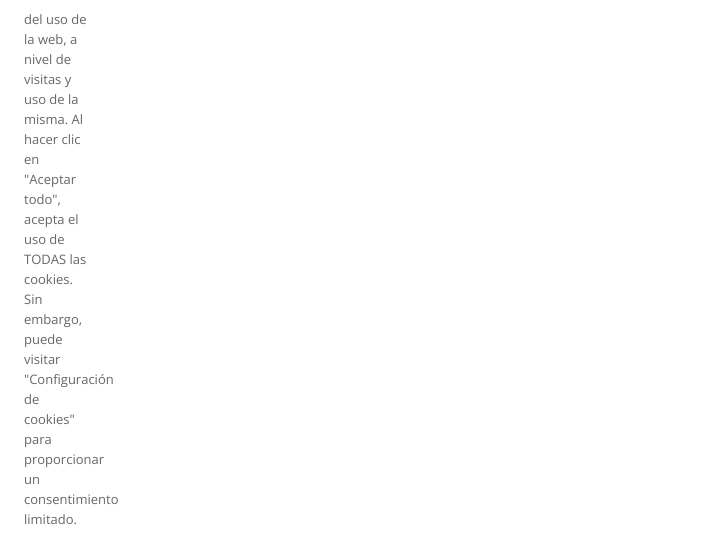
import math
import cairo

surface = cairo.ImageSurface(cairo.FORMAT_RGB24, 717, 549)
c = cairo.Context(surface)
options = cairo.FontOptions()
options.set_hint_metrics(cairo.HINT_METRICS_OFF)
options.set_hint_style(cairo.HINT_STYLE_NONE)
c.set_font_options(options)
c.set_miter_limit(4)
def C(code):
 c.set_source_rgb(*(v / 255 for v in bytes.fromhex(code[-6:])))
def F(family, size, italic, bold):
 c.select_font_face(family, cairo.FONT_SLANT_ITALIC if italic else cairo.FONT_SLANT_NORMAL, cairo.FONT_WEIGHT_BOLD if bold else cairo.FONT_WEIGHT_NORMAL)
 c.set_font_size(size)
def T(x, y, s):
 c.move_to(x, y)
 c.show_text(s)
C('ffffff')
c.paint()
F('Open Sans',13,0,0)
C('666666')
T(24,24,'del uso de')
T(24,44,'la web, a')
T(24,64,'nivel de')
T(24,84,'visitas y')
T(24,104,'uso de la')
T(24,124,'misma. Al')
T(24,144,'hacer clic')
T(24,164,'en')
T(24,184,'"Aceptar')
T(24,204,'todo",')
T(24,224,'acepta el')
T(24,244,'uso de')
T(24,264,'TODAS las')
T(24,284,'cookies.')
T(24,304,'Sin')
T(24,324,'embargo,')
T(24,344,'puede')
T(24,364,'visitar')
T(24,384,'"Configuración')
T(24,404,'de')
T(24,424,'cookies"')
T(24,444,'para')
T(24,464,'proporcionar')
T(24,484,'un')
T(24,504,'consentimiento')
T(24,524,'limitado.')
surface.write_to_png('o.png')
